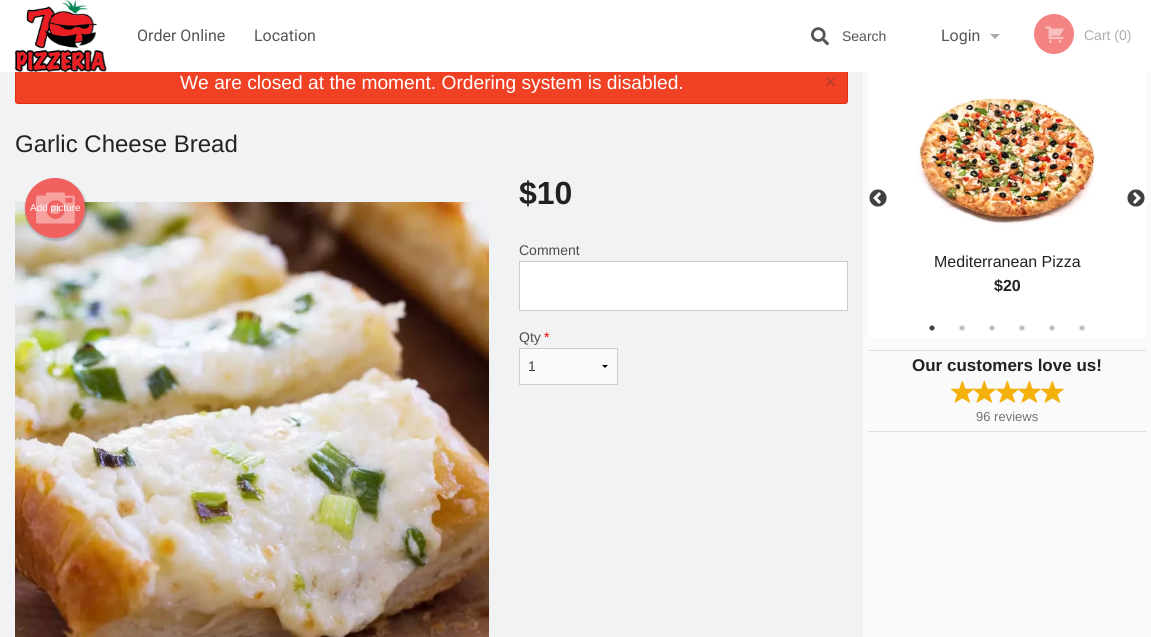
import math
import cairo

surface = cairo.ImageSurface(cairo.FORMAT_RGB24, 1151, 637)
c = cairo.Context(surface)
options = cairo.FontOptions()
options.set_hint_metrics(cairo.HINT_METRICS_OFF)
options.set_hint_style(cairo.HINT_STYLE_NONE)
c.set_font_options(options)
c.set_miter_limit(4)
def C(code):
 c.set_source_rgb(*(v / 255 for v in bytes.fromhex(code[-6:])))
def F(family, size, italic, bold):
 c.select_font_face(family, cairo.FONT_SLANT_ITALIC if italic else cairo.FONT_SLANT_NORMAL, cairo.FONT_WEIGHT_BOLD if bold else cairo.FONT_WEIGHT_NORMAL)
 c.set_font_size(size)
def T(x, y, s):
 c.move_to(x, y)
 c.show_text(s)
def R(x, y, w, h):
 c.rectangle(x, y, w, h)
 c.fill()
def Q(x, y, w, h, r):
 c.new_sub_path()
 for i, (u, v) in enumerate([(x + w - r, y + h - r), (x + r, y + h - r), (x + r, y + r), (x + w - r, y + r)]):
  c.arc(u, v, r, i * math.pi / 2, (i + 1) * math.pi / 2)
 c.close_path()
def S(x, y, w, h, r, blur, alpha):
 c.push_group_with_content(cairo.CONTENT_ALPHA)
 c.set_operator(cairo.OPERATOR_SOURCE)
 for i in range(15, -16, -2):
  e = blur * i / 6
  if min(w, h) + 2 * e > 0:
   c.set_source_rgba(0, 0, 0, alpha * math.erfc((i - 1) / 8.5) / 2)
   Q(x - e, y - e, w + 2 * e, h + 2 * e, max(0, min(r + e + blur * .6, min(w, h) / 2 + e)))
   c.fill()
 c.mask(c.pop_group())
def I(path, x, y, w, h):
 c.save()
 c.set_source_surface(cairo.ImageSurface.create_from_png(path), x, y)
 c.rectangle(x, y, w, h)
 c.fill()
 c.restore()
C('f1f2f3')
c.paint()
C('f04124')
Q(15.5,63.5,832,40,2.5)
c.fill_preserve()
C('de2d0f')
c.set_line_width(1)
c.stroke()
C('ffffff')
R(0,0,1151,72)
I('1.png',14,0,93,72)
F('Roboto',16,0,0)
C('555555')
T(137,41,'Order Online')
T(254,41,'Location')
I('2.png',811,27,18,19)
F('Liberation Sans',14,0,0)
T(842,41,'Search')
F('Roboto',16,0,0)
T(941,41,'Login')
C('aaaaaa')
c.new_path()
c.move_to(990,34)
c.line_to(1000,34)
c.line_to(995,39)
c.close_path()
c.fill()
C('f38482')
c.arc(1054,34,20,0,2 * math.pi)
c.fill()
I('3.png',1045,26,19,17)
F('Liberation Sans',14,0,0)
C('acacac')
T(1084,40,'Cart (0)')
F('Liberation Sans',19.2,0,0)
C('ffffff')
T(180,89,'We are closed at the moment. Ordering system is disabled.')
F('Liberation Sans',22,0,0)
C('b73d29')
T(824,89,'×')
F('Liberation Sans',24,0,0)
C('222222')
T(15,152,'Garlic Cheese Bread')
I('4.png',15,202,474,435)
C('000000')
S(25,179,62,62,31,1,.2)
C('f0615f')
c.arc(55,208,30,0,2 * math.pi)
c.fill()
I('5.png',36,192,39,32)
F('Liberation Sans',10,0,0)
C('ffffff')
T(30,211,'Add picture')
F('Liberation Sans',32,0,1)
C('222222')
T(519,204,'$10')
F('Liberation Sans',14,0,0)
C('4d4d4d')
T(519,255,'Comment')
C('ffffff')
c.rectangle(519.5,261.5,328,49)
c.fill_preserve()
C('cccccc')
c.stroke()
C('4d4d4d')
T(519,342,'Qty')
C('ff0000')
T(544,342,'*')
C('fafafa')
R(520,349,97,35)
C('000000')
c.new_path()
c.move_to(608,365)
c.line_to(605,368)
c.line_to(602,365)
c.close_path()
c.fill()
c.rectangle(519.5,348.5,98,36)
C('cccccc')
c.stroke()
C('3f3f3f')
T(528,371,'1')
C('fafafa')
R(863,72,288,565)
C('ffffff')
R(868,72,278,266)
I('6.png',869,189,18,18)
I('7.png',1127,189,18,18)
I('8.png',917,97,178,128)
F('Liberation Sans',16,0,0)
C('222222')
T(934,267,'Mediterranean Pizza')
F('Liberation Sans',16,0,1)
T(994,291,'$20')
I('9.png',929,325,6,6)
I('10.png',959,325,6,6)
I('10.png',989,325,6,6)
I('10.png',1019,325,6,6)
I('10.png',1049,325,6,6)
I('10.png',1079,325,6,6)
C('dddddd')
R(868,350,278,1)
F('Liberation Sans',17,0,1)
C('222222')
T(912,371,'Our customers love us!')
I('11.png',951,380,23,23)
I('12.png',973,380,23,23)
I('11.png',996,380,23,23)
I('12.png',1018,380,23,23)
I('11.png',1041,380,23,23)
F('Liberation Sans',13,0,0)
C('737373')
T(976,421,'96 reviews')
C('dddddd')
R(868,431,278,1)
surface.write_to_png('o.png')
